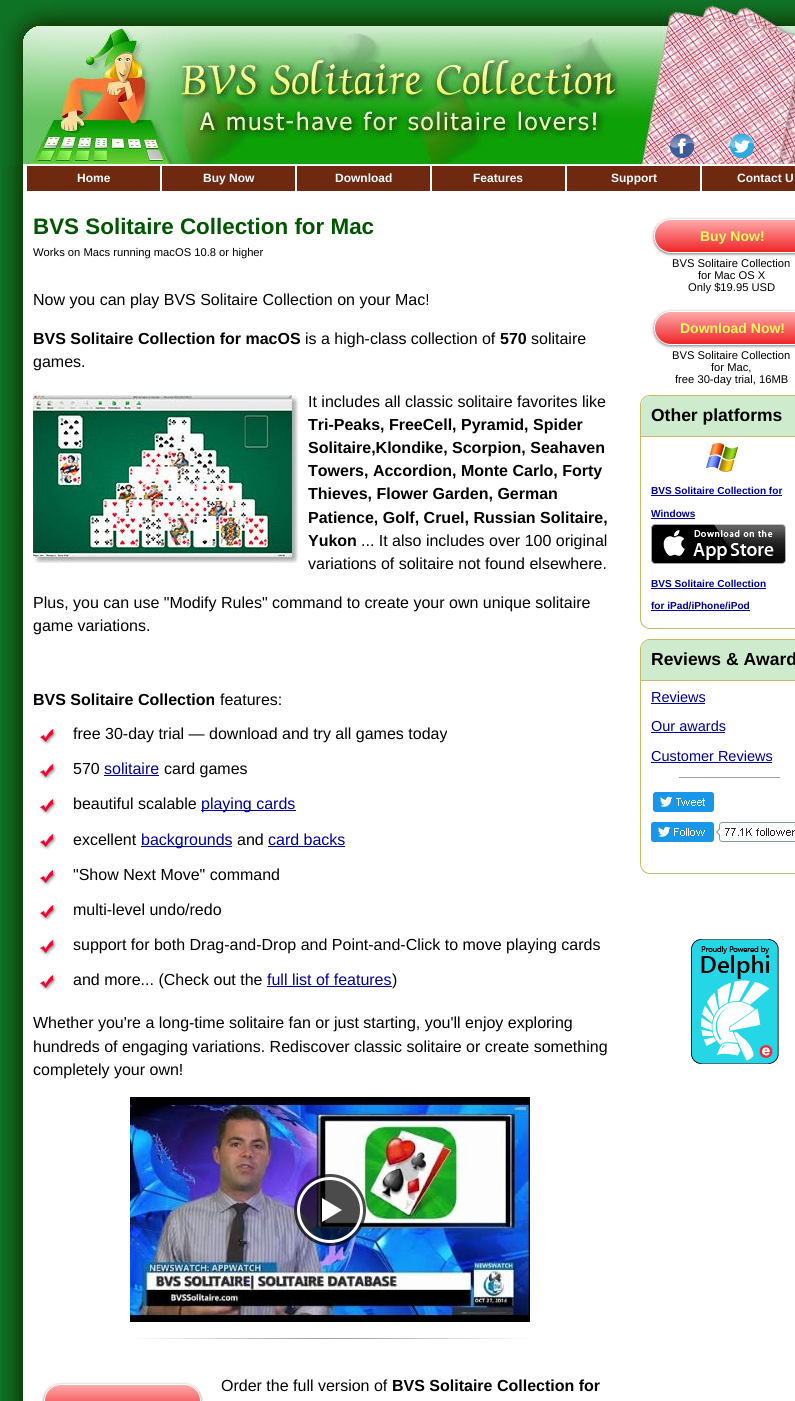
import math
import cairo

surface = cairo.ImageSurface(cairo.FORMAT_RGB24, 795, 1401)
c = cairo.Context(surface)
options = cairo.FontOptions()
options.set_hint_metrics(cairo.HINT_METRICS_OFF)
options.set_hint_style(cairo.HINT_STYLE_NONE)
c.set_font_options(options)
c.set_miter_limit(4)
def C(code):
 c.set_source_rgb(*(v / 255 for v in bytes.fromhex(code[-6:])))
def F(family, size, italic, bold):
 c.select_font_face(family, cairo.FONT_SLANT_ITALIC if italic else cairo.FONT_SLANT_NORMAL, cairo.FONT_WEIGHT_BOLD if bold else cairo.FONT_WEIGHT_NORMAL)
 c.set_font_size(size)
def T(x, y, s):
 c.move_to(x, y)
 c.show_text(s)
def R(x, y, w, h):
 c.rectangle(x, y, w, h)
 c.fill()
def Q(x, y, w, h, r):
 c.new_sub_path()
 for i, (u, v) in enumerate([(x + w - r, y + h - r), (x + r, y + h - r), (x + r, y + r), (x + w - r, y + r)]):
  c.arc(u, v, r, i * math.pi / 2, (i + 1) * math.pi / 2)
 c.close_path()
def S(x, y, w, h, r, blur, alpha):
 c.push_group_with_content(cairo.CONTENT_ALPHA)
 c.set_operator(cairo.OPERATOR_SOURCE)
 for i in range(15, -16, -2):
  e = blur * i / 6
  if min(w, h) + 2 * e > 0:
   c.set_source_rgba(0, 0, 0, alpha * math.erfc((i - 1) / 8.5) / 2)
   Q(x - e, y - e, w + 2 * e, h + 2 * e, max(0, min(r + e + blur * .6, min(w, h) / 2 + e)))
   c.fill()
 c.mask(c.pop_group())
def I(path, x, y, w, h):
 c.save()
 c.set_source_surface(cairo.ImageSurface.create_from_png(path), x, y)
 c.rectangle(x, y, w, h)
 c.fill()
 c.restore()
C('0f7326')
c.paint()
I('1.png',2,209,793,1192)
I('2.png',2,0,793,165)
I('3.png',670,134,24,24)
I('4.png',730,134,24,24)
I('5.png',2,165,793,44)
C('6f2911')
R(27,166,133,25)
F('Liberation Sans',12,0,1)
C('fefefe')
T(77,182,'Home')
C('6f2911')
R(162,166,133,25)
C('fefefe')
T(203,182,'Buy Now')
C('6f2911')
R(297,166,133,25)
C('fefefe')
T(335,182,'Download')
C('6f2911')
R(432,166,133,25)
C('fefefe')
T(473,182,'Features')
C('6f2911')
R(567,166,133,25)
C('fefefe')
T(611,182,'Support')
C('6f2911')
R(702,166,93,25)
C('fefefe')
T(737,182,'Contact U')
F('Liberation Sans',22.4,0,1)
C('005500')
T(33,234,'BVS Solitaire Collection for Mac')
F('Liberation Sans',11.2,0,0)
C('000000')
T(33,256,'Works on Macs running macOS 10.8 or higher')
F('Liberation Sans',16,0,0)
T(33,305,'Now you can play BVS Solitaire Collection on your Mac!')
F('Liberation Sans',16,0,1)
T(33,344,'BVS Solitaire Collection for macOS')
F('Liberation Sans',16,0,0)
T(305,344,'is a high-class collection of')
F('Liberation Sans',16,0,1)
T(500,344,'570')
F('Liberation Sans',16,0,0)
T(531,344,'solitaire')
T(33,367,'games.')
I('6.png',33,395,265,168)
T(308,407,'It includes all classic solitaire favorites like')
F('Liberation Sans',16,0,1)
T(308,430,'Tri-Peaks, FreeCell, Pyramid, Spider')
T(308,453,'Solitaire,Klondike, Scorpion, Seahaven')
T(308,476,'Towers, Accordion, Monte Carlo, Forty')
T(308,499,'Thieves, Flower Garden, German')
T(308,523,'Patience, Golf, Cruel, Russian Solitaire,')
T(308,546,'Yukon')
F('Liberation Sans',16,0,0)
T(361,546,'... It also includes over 100 original')
T(308,569,'variations of solitaire not found elsewhere.')
T(33,608,'Plus, you can use "Modify Rules" command to create your own unique solitaire')
T(33,631,'game variations.')
F('Liberation Sans',16,0,1)
T(33,705,'BVS Solitaire Collection')
F('Liberation Sans',16,0,0)
T(220,705,'features:')
I('7.png',39,728,18,17)
T(73,739,'free 30-day trial — download and try all games today')
I('7.png',39,763,18,17)
T(73,774,'570')
C('000099')
T(104,774,'solitaire')
R(104,775,55,1)
C('000000')
T(164,774,'card games')
I('7.png',39,798,18,17)
T(73,809,'beautiful scalable')
C('000099')
R(201,810,95,1)
T(201,809,'playing cards')
I('7.png',39,833,18,17)
C('000000')
T(73,845,'excellent')
C('000099')
R(141,846,91,1)
T(141,845,'backgrounds')
C('000000')
T(237,845,'and')
C('000099')
T(268,845,'card backs')
R(268,846,77,1)
I('7.png',39,869,18,17)
C('000000')
T(73,880,'"Show Next Move" command')
I('7.png',39,904,18,17)
T(73,915,'multi-level undo/redo')
I('7.png',39,939,18,17)
T(73,950,'support for both Drag-and-Drop and Point-and-Click to move playing cards')
I('7.png',39,974,18,17)
T(73,985,'and more... (Check out the')
C('000099')
T(267,985,'full list of features')
R(267,986,125,1)
C('000000')
T(392,985,')')
T(33,1028,'Whether you\'re a long-time solitaire fan or just starting, you\'ll enjoy exploring')
T(33,1052,'hundreds of engaging variations. Rediscover classic solitaire or create something')
T(33,1075,'completely your own!')
I('8.png',130,1097,400,225)
I('9.png',294,1174,72,72)
I('10.png',132,1338,397,1)
C('777777')
S(44,1385,157,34,17,1.5,1)
c.save()
Q(44,1384,157,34,17)
c.clip()
gradient = cairo.LinearGradient(123,1385,123,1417)
gradient.add_color_stop_rgba(0,1,0.667,0.667,1)
gradient.add_color_stop_rgba(1,0.937,0.145,0.161,1)
c.set_source(gradient)
R(44,1385,157,16)
c.restore()
Q(44.5,1384.5,156,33,16.5)
C('ffffff')
c.set_line_width(1)
c.stroke()
C('000000')
T(221,1391,'Order the full version of')
F('Liberation Sans',16,0,1)
T(392,1391,'BVS Solitaire Collection for')
C('777777')
S(654,220,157,34,17,1.5,1)
c.save()
Q(654,219,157,34,17)
c.clip()
gradient = cairo.LinearGradient(733,220,733,252)
gradient.add_color_stop_rgba(0,1,0.667,0.667,1)
gradient.add_color_stop_rgba(1,0.937,0.145,0.161,1)
c.set_source(gradient)
R(654,220,141,32)
c.restore()
Q(654.5,219.5,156,33,16.5)
C('ffffff')
c.stroke()
F('Liberation Sans',14,0,1)
C('fffa5e')
T(700,241,'Buy Now!')
F('Liberation Sans',11.2,0,0)
C('000000')
T(672,267,'BVS Solitaire Collection')
T(698,279,'for Mac OS X')
T(688,291,'Only $19.95 USD')
C('777777')
S(654,312,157,34,17,1.5,1)
c.save()
Q(654,311,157,34,17)
c.clip()
gradient = cairo.LinearGradient(733,312,733,344)
gradient.add_color_stop_rgba(0,1,0.667,0.667,1)
gradient.add_color_stop_rgba(1,0.937,0.145,0.161,1)
c.set_source(gradient)
R(654,312,141,32)
c.restore()
Q(654.5,311.5,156,33,16.5)
C('ffffff')
c.stroke()
F('Liberation Sans',14,0,1)
C('fffa5e')
T(680,333,'Download Now!')
F('Liberation Sans',11.2,0,0)
C('000000')
T(672,359,'BVS Solitaire Collection')
T(711,371,'for Mac,')
T(675,383,'free 30-day trial, 16MB')
Q(640.5,395.5,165,233,9.5)
C('c9ba65')
c.stroke()
C('ceebce')
c.new_path()
c.move_to(650,396)
c.line_to(795,396)
c.curve_to(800,396,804,400,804,405)
c.line_to(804,437)
c.line_to(641,437)
c.line_to(641,405)
c.curve_to(641,400,645,396,650,396)
c.close_path()
c.fill()
C('c9ba65')
R(641,436,154,1)
F('Liberation Sans',17.5,0,1)
C('000000')
T(651,421,'Other platforms')
I('11.png',706,443,32,29)
F('Liberation Sans',10.1,0,1)
C('000099')
T(651,494,'BVS Solitaire Collection for')
R(651,495,131,1)
T(651,517,'Windows')
R(651,518,44,1)
I('12.png',651,524,135,40)
T(651,587,'BVS Solitaire Collection')
R(651,588,115,1)
T(651,609,'for iPad/iPhone/iPod')
R(651,610,99,1)
Q(640.5,639.5,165,234,9.5)
C('c9ba65')
c.stroke()
C('ceebce')
c.new_path()
c.move_to(650,640)
c.line_to(795,640)
c.curve_to(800,640,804,644,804,649)
c.line_to(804,681)
c.line_to(641,681)
c.line_to(641,649)
c.curve_to(641,644,645,640,650,640)
c.close_path()
c.fill()
C('c9ba65')
R(641,680,154,1)
F('Liberation Sans',17.5,0,1)
C('000000')
T(651,665,'Reviews & Award')
F('Liberation Sans',14.5,0,0)
C('000099')
T(651,702,'Reviews')
R(651,703,54,1)
T(651,731,'Our awards')
R(651,732,74,1)
T(651,761,'Customer Reviews')
R(651,762,121,1)
C('9f9f9f')
R(679,777,102,1)
C('eeeeee')
R(780,777,1,1)
I('13.png',653,792,61,20)
I('14.png',651,822,144,20)
I('15.png',691,939,88,125)
surface.write_to_png('o.png')
